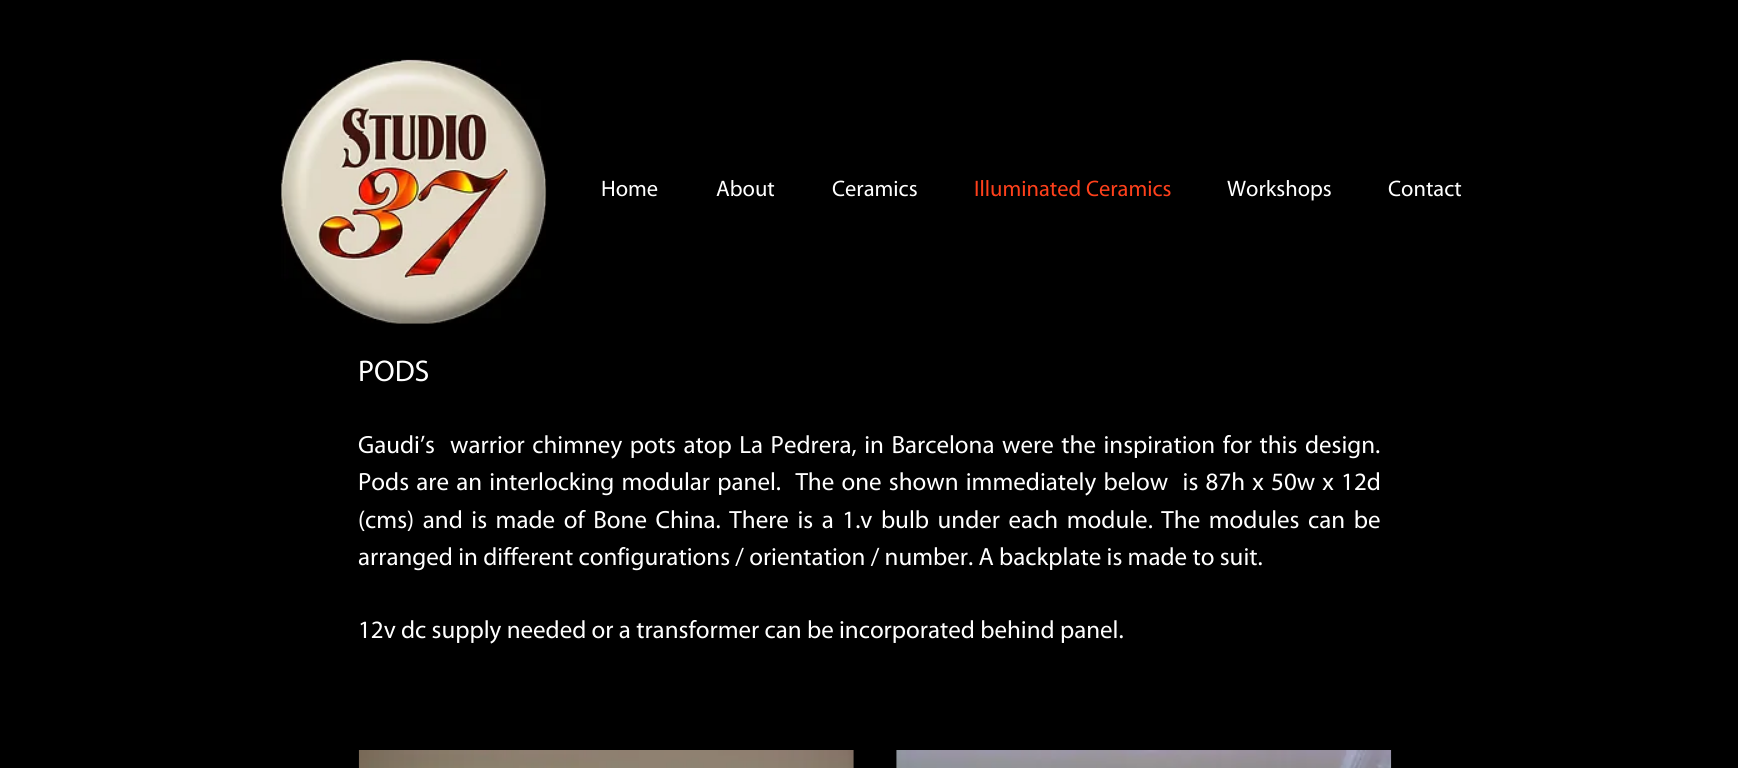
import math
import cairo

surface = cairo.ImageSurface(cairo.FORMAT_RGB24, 1738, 768)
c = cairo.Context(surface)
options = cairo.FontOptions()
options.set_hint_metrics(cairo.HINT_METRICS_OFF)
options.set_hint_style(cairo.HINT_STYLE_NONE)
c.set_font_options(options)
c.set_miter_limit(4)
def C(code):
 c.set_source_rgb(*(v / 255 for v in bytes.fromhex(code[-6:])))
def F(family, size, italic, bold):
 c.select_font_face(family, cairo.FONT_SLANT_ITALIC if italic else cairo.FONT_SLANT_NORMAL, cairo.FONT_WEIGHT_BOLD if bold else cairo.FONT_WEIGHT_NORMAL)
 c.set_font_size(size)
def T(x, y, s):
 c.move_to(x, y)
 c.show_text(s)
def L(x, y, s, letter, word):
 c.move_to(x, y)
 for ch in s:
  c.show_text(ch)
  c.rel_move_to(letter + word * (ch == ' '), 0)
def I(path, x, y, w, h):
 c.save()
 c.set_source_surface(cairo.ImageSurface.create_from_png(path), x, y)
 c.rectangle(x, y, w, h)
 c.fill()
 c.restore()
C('000000')
c.paint()
I('1.png',281,59,266,265)
F('Myriad',22.5,0,0)
C('ffffff')
T(601,196,'Home')
T(716,196,'About')
T(832,196,'Ceramics')
C('ff401b')
T(974,196,'Illuminated Ceramics')
C('ffffff')
T(1227,196,'Workshops')
T(1388,196,'Contact')
F('Myriad',30,0,0)
T(358,381,'PODS')
F('Myriad',25,0,0)
L(358,453,'Gaudi’s  warrior chimney pots atop La Pedrera, in Barcelona were the inspiration for this design.',0,2.25)
L(358,490,'Pods are an interlocking modular panel.  The one shown immediately below  is 87h x 50w x 12d',0,1.9)
L(358,528,'(cms) and is made of Bone China. There is a 1.v bulb under each module. The modules can be',0,3.25)
T(358,565,'arranged in different configurations / orientation / number. A backplate is made to suit.')
T(358,638,'12v dc supply needed or a transformer can be incorporated behind panel.')
I('2.png',358,750,496,18)
I('3.png',896,750,496,18)
surface.write_to_png('o.png')
